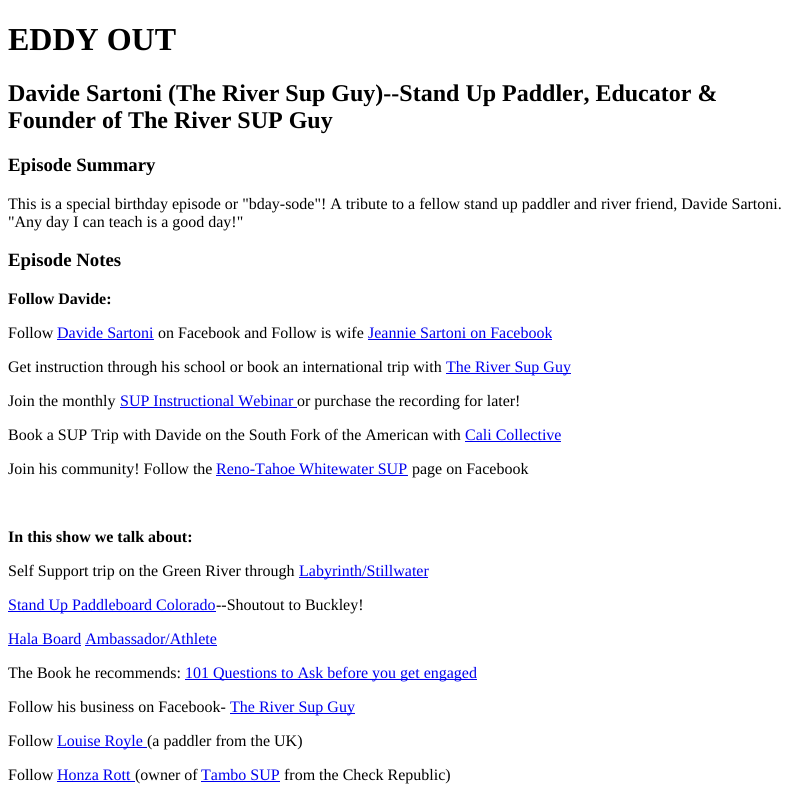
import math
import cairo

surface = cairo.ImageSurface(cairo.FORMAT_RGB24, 797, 798)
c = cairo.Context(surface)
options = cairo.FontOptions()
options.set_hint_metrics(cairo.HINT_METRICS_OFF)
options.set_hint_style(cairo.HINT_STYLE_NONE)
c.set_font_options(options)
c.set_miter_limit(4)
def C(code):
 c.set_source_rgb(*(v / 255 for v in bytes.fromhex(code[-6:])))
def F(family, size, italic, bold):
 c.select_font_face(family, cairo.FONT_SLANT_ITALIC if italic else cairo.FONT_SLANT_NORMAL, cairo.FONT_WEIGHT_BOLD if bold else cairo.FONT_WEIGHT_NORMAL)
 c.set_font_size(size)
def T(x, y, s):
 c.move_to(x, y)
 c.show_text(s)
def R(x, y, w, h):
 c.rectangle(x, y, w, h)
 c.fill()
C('ffffff')
c.paint()
F('Liberation Serif',32,0,1)
C('000000')
T(8,50,'EDDY OUT')
F('Liberation Serif',24,0,1)
T(8,101,'Davide Sartoni (The River Sup Guy)--Stand Up Paddler, Educator &')
T(8,128,'Founder of The River SUP Guy')
F('Liberation Serif',18.75,0,1)
T(8,171,'Episode Summary')
F('Liberation Serif',16,0,0)
T(8,209,'This is a special birthday episode or "bday-sode"! A tribute to a fellow stand up paddler and river friend, Davide Sartoni.')
T(8,227,'"Any day I can teach is a good day!"')
F('Liberation Serif',18.75,0,1)
T(8,266,'Episode Notes')
F('Liberation Serif',16,0,1)
T(8,304,'Follow Davide:')
F('Liberation Serif',16,0,0)
T(8,338,'Follow')
C('0000ee')
T(57,338,'Davide Sartoni')
R(57,339,97,1)
C('000000')
T(158,338,'on Facebook and Follow is wife')
C('0000ee')
T(368,338,'Jeannie Sartoni on Facebook')
R(368,339,184,1)
C('000000')
T(8,372,'Get instruction through his school or book an international trip with')
C('0000ee')
R(446,373,125,1)
T(446,372,'The River Sup Guy')
C('000000')
T(8,406,'Join the monthly')
C('0000ee')
T(120,406,'SUP Instructional Webinar')
R(120,407,177,1)
C('000000')
T(297,406,'or purchase the recording for later!')
T(8,440,'Book a SUP Trip with Davide on the South Fork of the American with')
C('0000ee')
T(465,440,'Cali Collective')
R(465,441,96,1)
C('000000')
T(8,474,'Join his community! Follow the')
C('0000ee')
T(216,474,'Reno-Tahoe Whitewater SUP')
R(216,475,192,1)
C('000000')
T(412,474,'page on Facebook')
F('Liberation Serif',16,0,1)
T(8,542,'In this show we talk about:')
F('Liberation Serif',16,0,0)
T(8,576,'Self Support trip on the Green River through')
C('0000ee')
R(299,577,129,1)
T(299,576,'Labyrinth/Stillwater')
R(8,611,208,1)
T(8,610,'Stand Up Paddleboard Colorado')
C('000000')
T(216,610,'--Shoutout to Buckley!')
C('0000ee')
T(8,644,'Hala Board Ambassador/Athlete')
R(8,645,73,1)
R(85,645,132,1)
C('000000')
T(8,678,'The Book he recommends:')
C('0000ee')
R(185,679,292,1)
T(185,678,'101 Questions to Ask before you get engaged')
C('000000')
T(8,712,'Follow his business on Facebook-')
C('0000ee')
R(230,713,125,1)
T(230,712,'The River Sup Guy')
C('000000')
T(8,746,'Follow')
C('0000ee')
R(57,747,90,1)
T(57,746,'Louise Royle')
C('000000')
T(147,746,'(a paddler from the UK)')
T(8,780,'Follow')
C('0000ee')
T(57,780,'Honza Rott')
R(57,781,78,1)
C('000000')
T(135,780,'(owner of')
C('0000ee')
T(201,780,'Tambo SUP')
R(201,781,79,1)
C('000000')
T(284,780,'from the Check Republic)')
surface.write_to_png('o.png')
